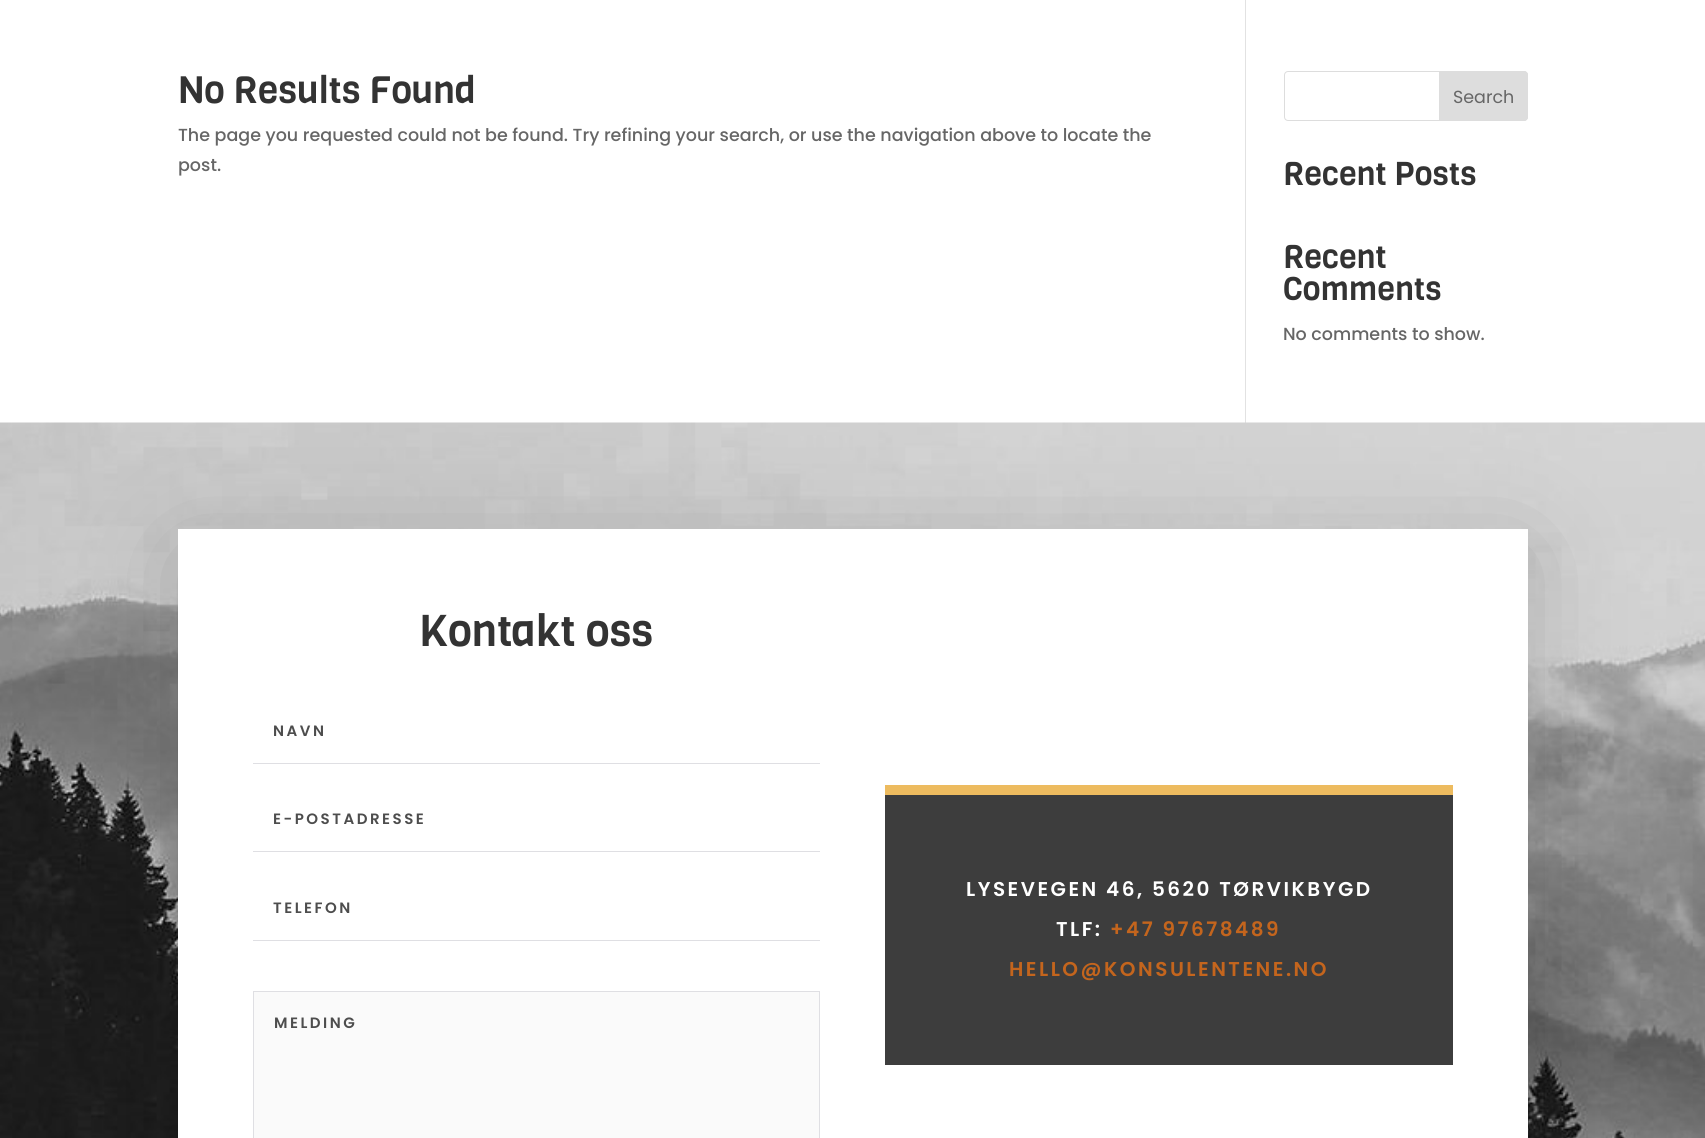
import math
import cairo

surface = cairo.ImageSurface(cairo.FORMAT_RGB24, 1705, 1138)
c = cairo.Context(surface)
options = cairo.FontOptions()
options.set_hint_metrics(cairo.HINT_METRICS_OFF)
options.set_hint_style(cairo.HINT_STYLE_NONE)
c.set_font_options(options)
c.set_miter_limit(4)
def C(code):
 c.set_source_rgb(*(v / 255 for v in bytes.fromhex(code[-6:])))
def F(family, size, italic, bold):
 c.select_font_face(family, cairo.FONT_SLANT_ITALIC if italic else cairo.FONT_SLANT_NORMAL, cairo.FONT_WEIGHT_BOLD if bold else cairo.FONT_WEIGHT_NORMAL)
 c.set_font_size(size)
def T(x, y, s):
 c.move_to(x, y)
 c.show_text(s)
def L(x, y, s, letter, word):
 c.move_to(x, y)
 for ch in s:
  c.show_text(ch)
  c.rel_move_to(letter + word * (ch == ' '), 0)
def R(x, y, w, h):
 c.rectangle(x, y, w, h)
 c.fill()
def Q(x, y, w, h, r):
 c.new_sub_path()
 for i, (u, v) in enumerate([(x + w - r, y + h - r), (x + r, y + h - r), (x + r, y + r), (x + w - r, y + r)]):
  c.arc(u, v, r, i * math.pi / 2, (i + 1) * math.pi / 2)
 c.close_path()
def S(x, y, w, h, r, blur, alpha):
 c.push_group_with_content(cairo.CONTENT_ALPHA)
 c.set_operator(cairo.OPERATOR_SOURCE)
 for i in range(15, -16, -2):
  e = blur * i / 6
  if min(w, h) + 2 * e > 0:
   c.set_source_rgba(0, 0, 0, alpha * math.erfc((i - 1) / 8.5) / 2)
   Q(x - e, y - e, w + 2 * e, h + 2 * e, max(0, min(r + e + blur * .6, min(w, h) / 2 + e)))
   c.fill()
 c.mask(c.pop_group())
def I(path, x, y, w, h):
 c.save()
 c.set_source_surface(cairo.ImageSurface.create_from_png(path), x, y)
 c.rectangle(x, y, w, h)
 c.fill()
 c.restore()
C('ffffff')
c.paint()
C('e2e2e2')
R(1245,0,1,423)
F('Viga',37.5,0,0)
C('333333')
T(178,103,'No Results Found')
F('Poppins Medium',17.5,0,0)
C('666666')
T(178,141,'The page you requested could not be found. Try refining your search, or use the navigation above to locate the')
T(178,171,'post.')
Q(1284.5,71.5,243,49,3.5)
C('dddddd')
c.set_line_width(1)
c.stroke()
c.new_path()
c.move_to(1439.5,71.5)
c.line_to(1524,71.5)
c.curve_to(1526,71.5,1527.5,73,1527.5,75)
c.line_to(1527.5,117)
c.curve_to(1527.5,119,1526,120.5,1524,120.5)
c.line_to(1439.5,120.5)
c.close_path()
c.fill_preserve()
c.stroke()
F('Poppins',17.5,0,0)
C('666666')
T(1453,103,'Search')
F('Viga',32.5,0,0)
C('333333')
T(1283,185,'Recent Posts')
T(1283,268,'Recent')
T(1283,300,'Comments')
F('Poppins Medium',17.5,0,0)
C('666666')
T(1283,340,'No comments to show.')
I('1.png',0,422,1705,716)
C('000000')
S(185,555,1335,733,0,50,.2)
C('ffffff')
R(178,529,1350,609)
F('Viga',43.75,0,0)
C('333333')
T(419,646,'Kontakt oss')
C('dfdfe3')
R(253,763,567,1)
F('Poppins SemiBold',15,0,0)
C('4d4d4d')
L(273,736,'NAVN',2.5,0)
C('dfdfe3')
R(253,851,567,1)
C('4d4d4d')
L(273,824,'E-POSTADRESSE',2.5,0)
C('dfdfe3')
R(253,940,567,1)
C('4d4d4d')
L(273,913,'TELEFON',2.5,0)
C('fafafa')
c.rectangle(253.5,991.5,566,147)
c.fill_preserve()
C('dfdfe3')
c.stroke()
C('4d4d4d')
L(274,1028,'MELDING',2.5,0)
C('3d3d3d')
R(885,795,568,270)
C('edbb5f')
R(885,785,568,10)
F('Poppins SemiBold',20,0,0)
C('ffffff')
L(966,896,'LYSEVEGEN 46, 5620 TØRVIKBYGD',2.5,0)
L(1056,936,'TLF:',2.5,0)
C('c4651d')
L(1110,936,'+47 97678489',2.5,0)
L(1009,976,'HELLO@KONSULENTENE.NO',2.5,0)
surface.write_to_png('o.png')
